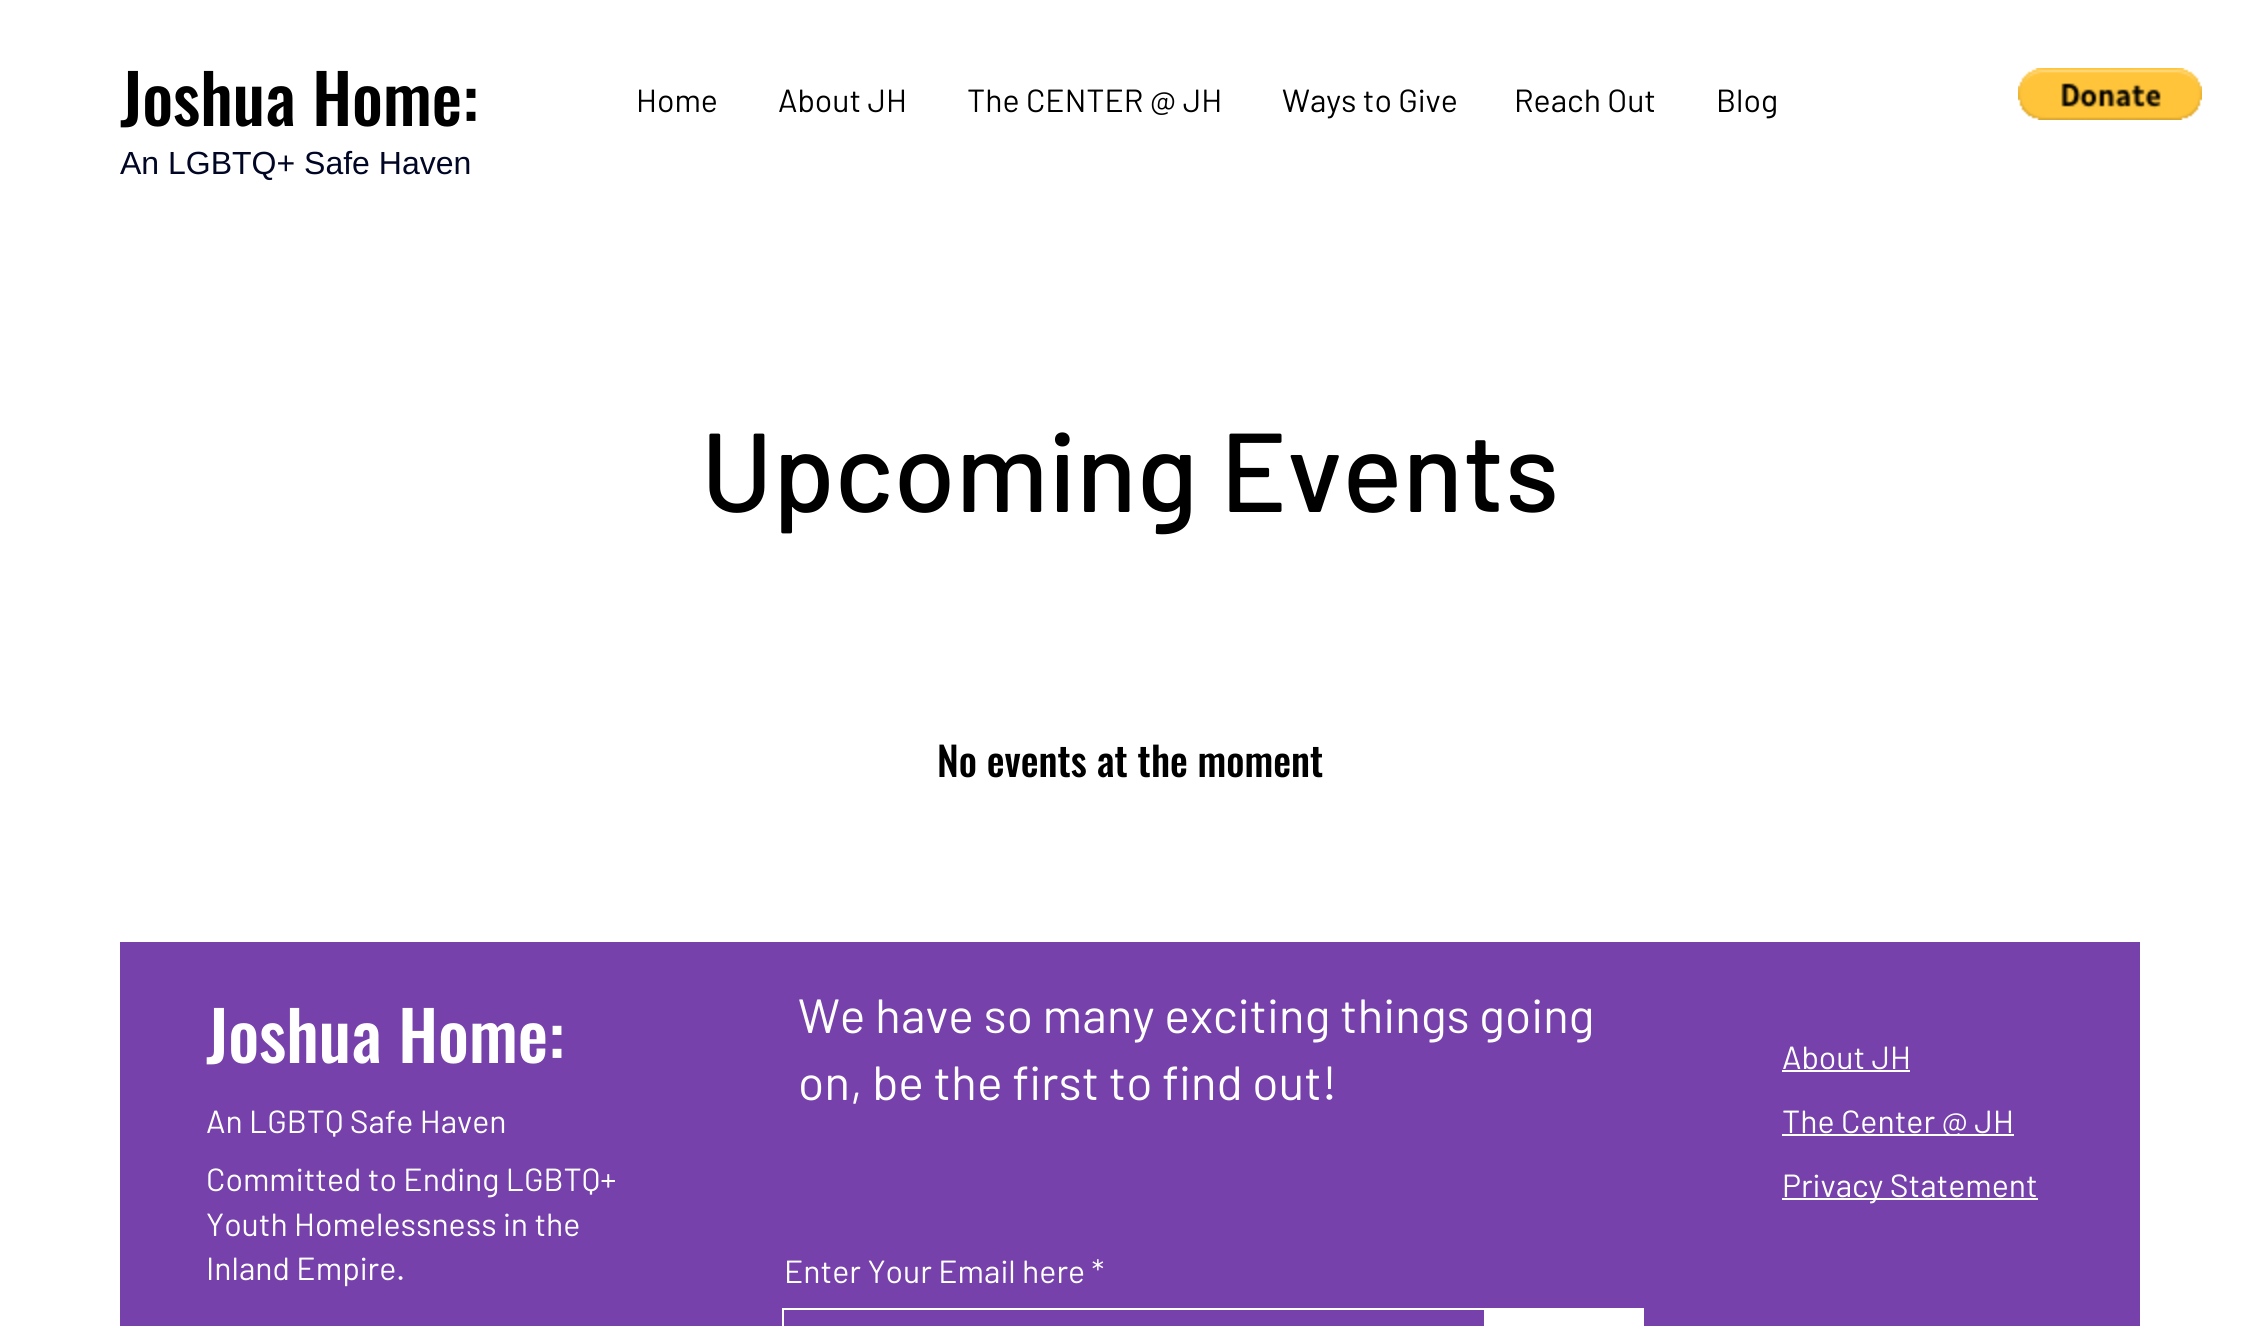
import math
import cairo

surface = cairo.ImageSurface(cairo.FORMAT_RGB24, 2259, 1326)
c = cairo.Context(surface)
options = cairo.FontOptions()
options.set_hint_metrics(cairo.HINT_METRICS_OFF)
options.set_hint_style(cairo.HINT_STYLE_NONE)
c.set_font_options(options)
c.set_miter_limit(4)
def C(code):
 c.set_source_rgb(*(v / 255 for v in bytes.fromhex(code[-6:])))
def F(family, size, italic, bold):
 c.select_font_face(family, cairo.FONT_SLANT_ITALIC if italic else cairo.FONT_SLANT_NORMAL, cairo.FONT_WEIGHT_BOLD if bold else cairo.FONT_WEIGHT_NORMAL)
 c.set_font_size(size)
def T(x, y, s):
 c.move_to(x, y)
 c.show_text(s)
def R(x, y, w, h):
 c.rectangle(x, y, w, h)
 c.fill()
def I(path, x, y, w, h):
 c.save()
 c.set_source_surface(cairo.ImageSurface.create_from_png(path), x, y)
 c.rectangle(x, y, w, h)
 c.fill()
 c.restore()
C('ffffff')
c.paint()
F('Oswald Medium',68,0,0)
C('000000')
T(120,126,'Joshua Home:')
F('Liberation Sans',32,0,0)
C('000624')
T(120,174,'An LGBTQ+ Safe Haven')
F('Barlow',32,0,0)
C('000000')
T(636,112,'Home')
T(778,112,'About JH')
T(967,112,'The CENTER @ JH')
T(1282,112,'Ways to Give')
T(1514,112,'Reach Out')
T(1716,112,'Blog')
I('1.png',2018,68,184,52)
F('Barlow Medium',112,0,0)
T(701,512,'Upcoming Events')
F('Oswald Medium',40,0,0)
T(937,777,'No events at the moment')
C('7641ab')
R(120,942,2020,384)
F('Oswald Medium',68,0,0)
C('ffffff')
T(206,1063,'Joshua Home:')
F('Barlow',32,0,0)
T(206,1133,'An LGBTQ Safe Haven')
T(206,1191,'Committed to Ending LGBTQ+')
T(206,1236,'Youth Homelessness in the')
T(206,1280,'Inland Empire.')
F('Barlow',48,0,0)
T(798,1033,'We have so many exciting things going')
T(798,1100,'on, be the first to find out!')
F('Barlow',32,0,0)
T(784,1283,'Enter Your Email here *')
c.rectangle(783,1309,702,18)
c.stroke()
R(1486,1308,158,18)
T(1782,1069,'About JH')
R(1782,1070,128,2)
R(1782,1134,232,2)
T(1782,1133,'The Center @ JH')
R(1782,1198,256,2)
T(1782,1197,'Privacy Statement')
surface.write_to_png('o.png')
